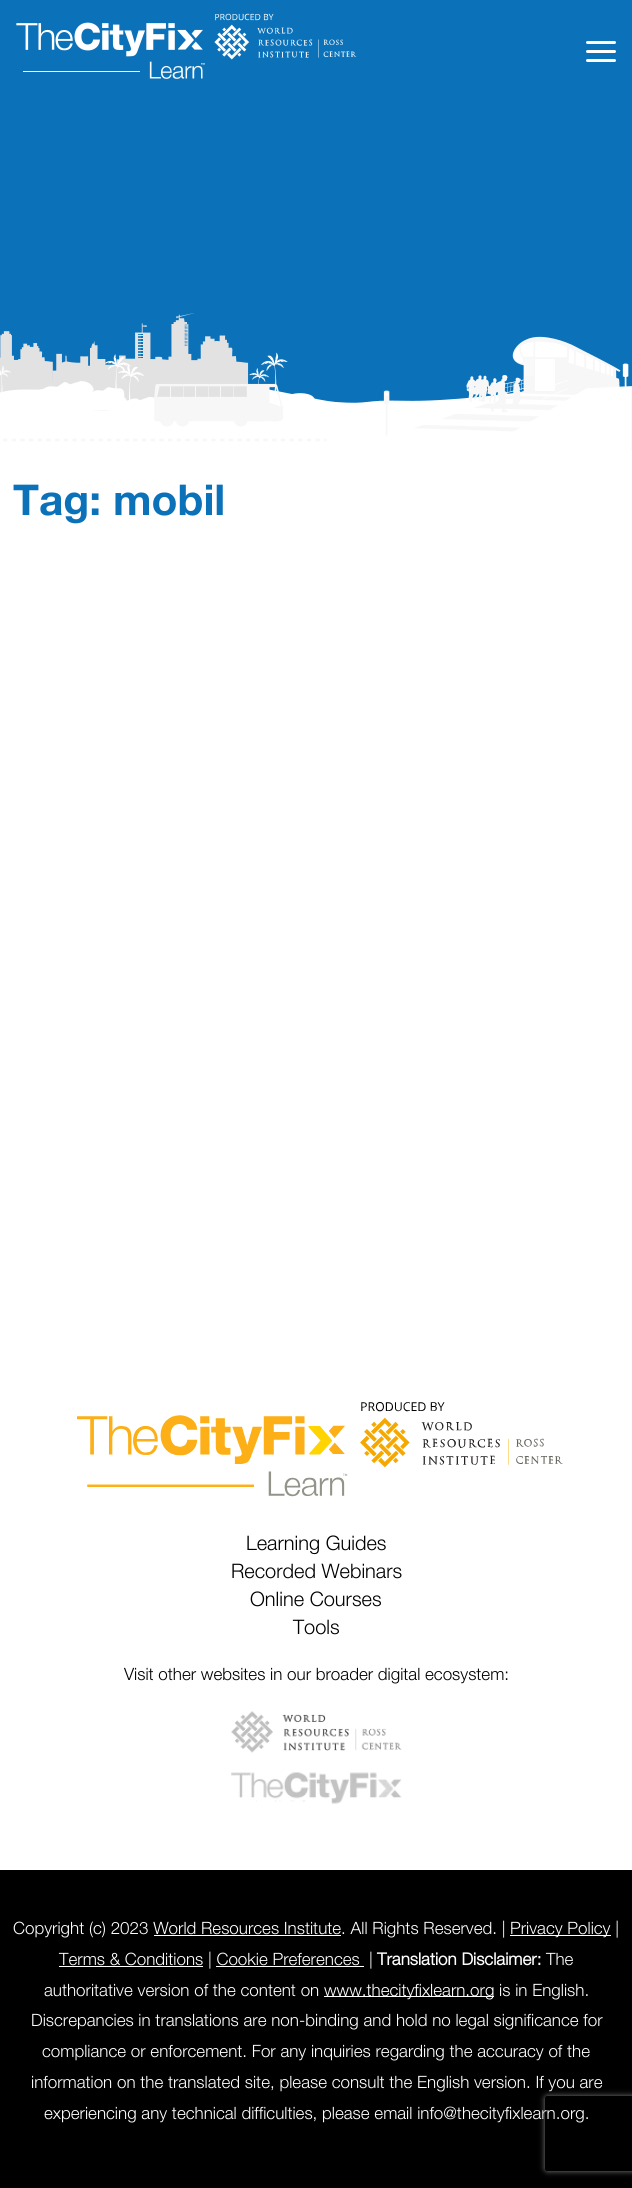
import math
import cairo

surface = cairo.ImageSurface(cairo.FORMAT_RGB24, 632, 2188)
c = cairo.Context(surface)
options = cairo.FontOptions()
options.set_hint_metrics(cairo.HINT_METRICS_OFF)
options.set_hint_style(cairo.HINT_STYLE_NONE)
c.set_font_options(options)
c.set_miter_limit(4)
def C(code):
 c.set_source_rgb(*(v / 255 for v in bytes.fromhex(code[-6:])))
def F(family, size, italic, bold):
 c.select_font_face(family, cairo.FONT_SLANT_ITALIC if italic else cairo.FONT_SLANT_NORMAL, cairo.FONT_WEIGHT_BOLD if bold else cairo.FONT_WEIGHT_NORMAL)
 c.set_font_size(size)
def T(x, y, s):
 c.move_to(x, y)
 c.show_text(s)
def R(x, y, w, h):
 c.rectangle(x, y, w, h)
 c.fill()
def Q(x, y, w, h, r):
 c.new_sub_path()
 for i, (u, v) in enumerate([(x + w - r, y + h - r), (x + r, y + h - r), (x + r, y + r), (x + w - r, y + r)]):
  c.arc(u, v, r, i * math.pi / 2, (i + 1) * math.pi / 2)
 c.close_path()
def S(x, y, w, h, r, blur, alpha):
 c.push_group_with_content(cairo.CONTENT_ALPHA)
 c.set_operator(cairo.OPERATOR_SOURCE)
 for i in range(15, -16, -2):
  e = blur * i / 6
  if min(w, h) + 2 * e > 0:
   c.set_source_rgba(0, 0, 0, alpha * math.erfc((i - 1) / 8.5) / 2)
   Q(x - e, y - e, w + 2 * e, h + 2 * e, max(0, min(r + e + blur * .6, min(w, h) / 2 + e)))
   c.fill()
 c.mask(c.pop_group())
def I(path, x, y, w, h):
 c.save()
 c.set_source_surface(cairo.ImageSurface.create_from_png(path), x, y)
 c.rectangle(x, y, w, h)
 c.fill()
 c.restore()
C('ffffff')
c.paint()
C('0b72ba')
R(0,0,632,450)
I('1.png',16,13,341,66)
C('ffffff')
Q(586,41,30,3,1.5)
c.fill()
Q(586,50,30,3,1.5)
c.fill()
Q(586,59,30,3,1.5)
c.fill()
I('2.png',0,313,632,137)
F('Helvetica Neue',42.5,0,1)
C('0b72ba')
T(13,515,'Tag: mobil')
I('3.png',77,1402,486,95)
F('Helvetica Neue Light',20,0,0)
C('000000')
T(246,1550,'Learning Guides')
T(231,1578,'Recorded Webinars')
T(250,1606,'Online Courses')
T(293,1634,'Tools')
F('Helvetica Neue Light',17,0,0)
T(124,1680,'Visit other websites in our broader digital ecosystem:')
I('4.png',231,1711,171,42)
I('5.png',231,1772,171,32)
R(0,1870,632,318)
C('ffffff')
T(13,1934,'Copyright (c) 2023 World Resources Institute. All Rights Reserved. |')
R(510,1935,101,1)
T(510,1934,'Privacy Policy |')
R(154,1935,187,1)
R(59,1966,144,1)
T(59,1965,'Terms & Conditions | Cookie Preferences')
T(369,1965,'|')
F('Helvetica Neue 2',17,0,1)
T(377,1965,'Translation Disclaimer:')
F('Helvetica Neue Light',17,0,0)
T(546,1965,'The')
R(216,1966,148,1)
T(44,1996,'authoritative version of the content on')
R(324,1996,170,1)
T(324,1996,'www.thecityfixlearn.org is in English.')
T(31,2026,'Discrepancies in translations are non-binding and hold no legal significance for')
T(42,2057,'compliance or enforcement. For any inquiries regarding the accuracy of the')
T(31,2088,'information on the translated site, please consult the English version. If you are')
T(44,2119,'experiencing any technical difficulties, please email info@thecityfixlearn.org.')
c.save()
c.set_fill_rule(cairo.FILL_RULE_EVEN_ODD)
c.new_path()
c.move_to(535,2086)
c.line_to(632,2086)
c.line_to(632,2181)
c.line_to(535,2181)
c.close_path()
c.move_to(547.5,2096)
c.line_to(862.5,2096)
c.curve_to(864,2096,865,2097,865,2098.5)
c.line_to(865,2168.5)
c.curve_to(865,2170,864,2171,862.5,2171)
c.line_to(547.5,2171)
c.curve_to(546,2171,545,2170,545,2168.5)
c.line_to(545,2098.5)
c.curve_to(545,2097,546,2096,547.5,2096)
c.close_path()
c.clip()
C('808080')
S(545,2096,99,75,2.5,3,1)
c.restore()
surface.write_to_png('o.png')
